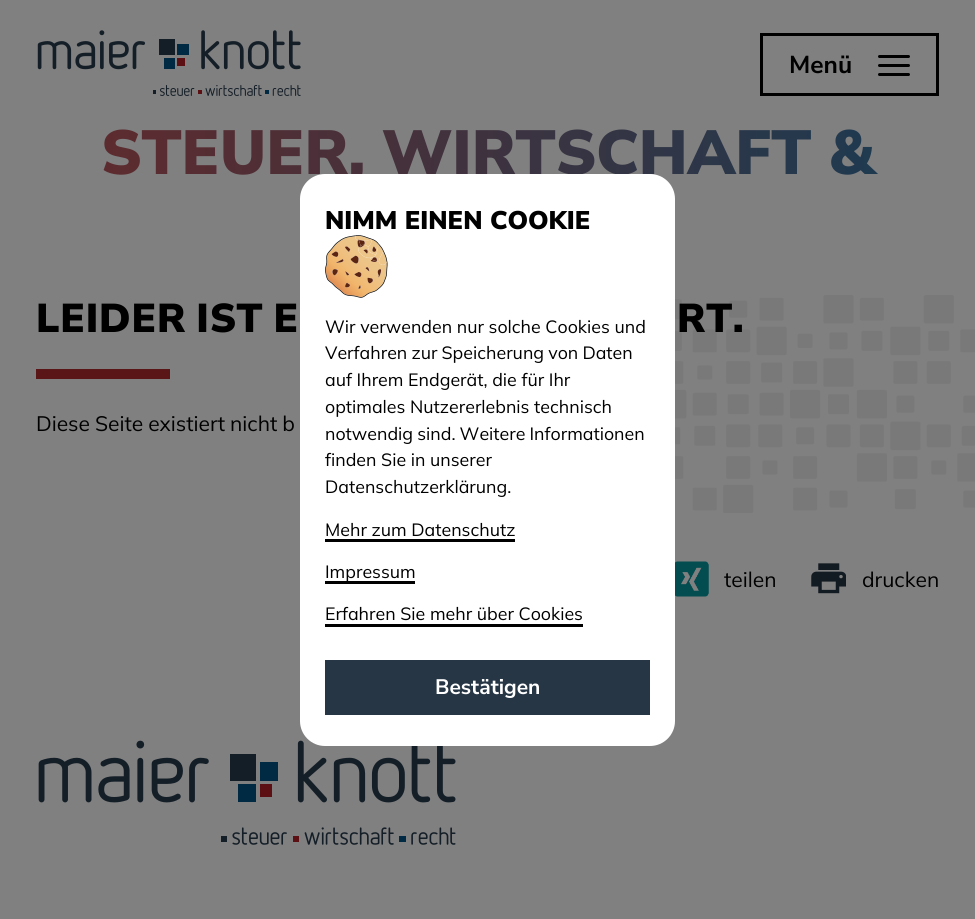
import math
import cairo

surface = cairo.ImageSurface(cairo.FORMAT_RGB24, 975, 919)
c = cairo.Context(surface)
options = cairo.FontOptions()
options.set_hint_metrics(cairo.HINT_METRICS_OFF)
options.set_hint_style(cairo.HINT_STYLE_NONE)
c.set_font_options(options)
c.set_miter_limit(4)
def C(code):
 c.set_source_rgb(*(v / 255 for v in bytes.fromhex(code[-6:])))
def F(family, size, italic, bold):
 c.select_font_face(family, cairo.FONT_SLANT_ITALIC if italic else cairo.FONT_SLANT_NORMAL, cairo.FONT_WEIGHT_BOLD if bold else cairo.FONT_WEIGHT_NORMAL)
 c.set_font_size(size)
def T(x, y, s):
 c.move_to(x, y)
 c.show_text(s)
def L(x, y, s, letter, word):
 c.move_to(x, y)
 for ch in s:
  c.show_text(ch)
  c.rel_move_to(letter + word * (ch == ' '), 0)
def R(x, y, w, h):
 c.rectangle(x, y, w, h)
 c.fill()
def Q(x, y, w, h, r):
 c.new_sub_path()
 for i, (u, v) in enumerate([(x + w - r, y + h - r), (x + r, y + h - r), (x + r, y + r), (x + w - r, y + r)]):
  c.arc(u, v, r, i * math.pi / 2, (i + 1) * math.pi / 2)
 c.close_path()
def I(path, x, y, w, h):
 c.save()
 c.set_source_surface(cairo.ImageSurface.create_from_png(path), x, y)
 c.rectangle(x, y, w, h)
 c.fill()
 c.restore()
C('808080')
c.paint()
I('1.png',37,30,264,66)
c.rectangle(761.5,34.5,176,60)
C('000000')
c.set_line_width(3)
c.stroke()
F('Nunito Sans',24.5,0,1)
T(789,73,'Menü')
Q(878,55,32,3,1.5)
c.fill()
Q(878,64,32,3,1.5)
c.fill()
Q(878,73,32,3,1.5)
c.fill()
F('Nunito Sans Black',62.2,0,0)
gradient = cairo.LinearGradient(36,155,939,155)
gradient.add_color_stop_rgba(0,0.384,0.165,0.173,1)
gradient.add_color_stop_rgba(1,0.102,0.231,0.322,1)
c.set_source(gradient)
L(101,174,'STEUER, WIRTSCHAFT &',0,-1)
F('Nunito Sans Black',40.25,0,0)
C('000000')
L(36,332,'LEIDER IST E',.75,-2)
I('2.png',675,295,300,218)
L(677,332,'RT.',.75,-2)
C('5a1517')
R(36,369,134,10)
F('Mulish',21,0,0)
C('000000')
L(36,431,'Diese Seite existiert nicht b',0,-.5)
I('3.png',675,561,34,36)
T(724,587,'teilen')
I('4.png',811,563,35,31)
T(862,587,'drucken')
I('5.png',38,740,418,105)
C('ffffff')
Q(300,174,375,572,25)
c.fill()
F('Nunito Sans Black',25.5,0,0)
C('000000')
T(325,229,'NIMM EINEN COOKIE')
I('6.png',325,235,63,63)
F('Mulish',17.8,0,0)
T(325,333,'Wir verwenden nur solche Cookies und')
L(325,359,'Verfahren zur Speicherung von Daten',0,-.5)
T(325,386,'auf Ihrem Endgerät, die für Ihr')
T(325,413,'optimales Nutzererlebnis technisch')
L(325,440,'notwendig sind. Weitere Informationen',0,-.5)
T(325,466,'finden Sie in unserer')
T(325,493,'Datenschutzerklärung.')
T(325,536,'Mehr zum Datenschutz')
R(325,539,190,3)
T(325,578,'Impressum')
R(325,581,90,3)
T(325,620,'Erfahren Sie mehr über Cookies')
R(325,624,258,3)
C('263645')
R(325,660,325,55)
F('Nunito Sans',21,0,1)
C('ffffff')
T(435,694,'Bestätigen')
surface.write_to_png('o.png')
